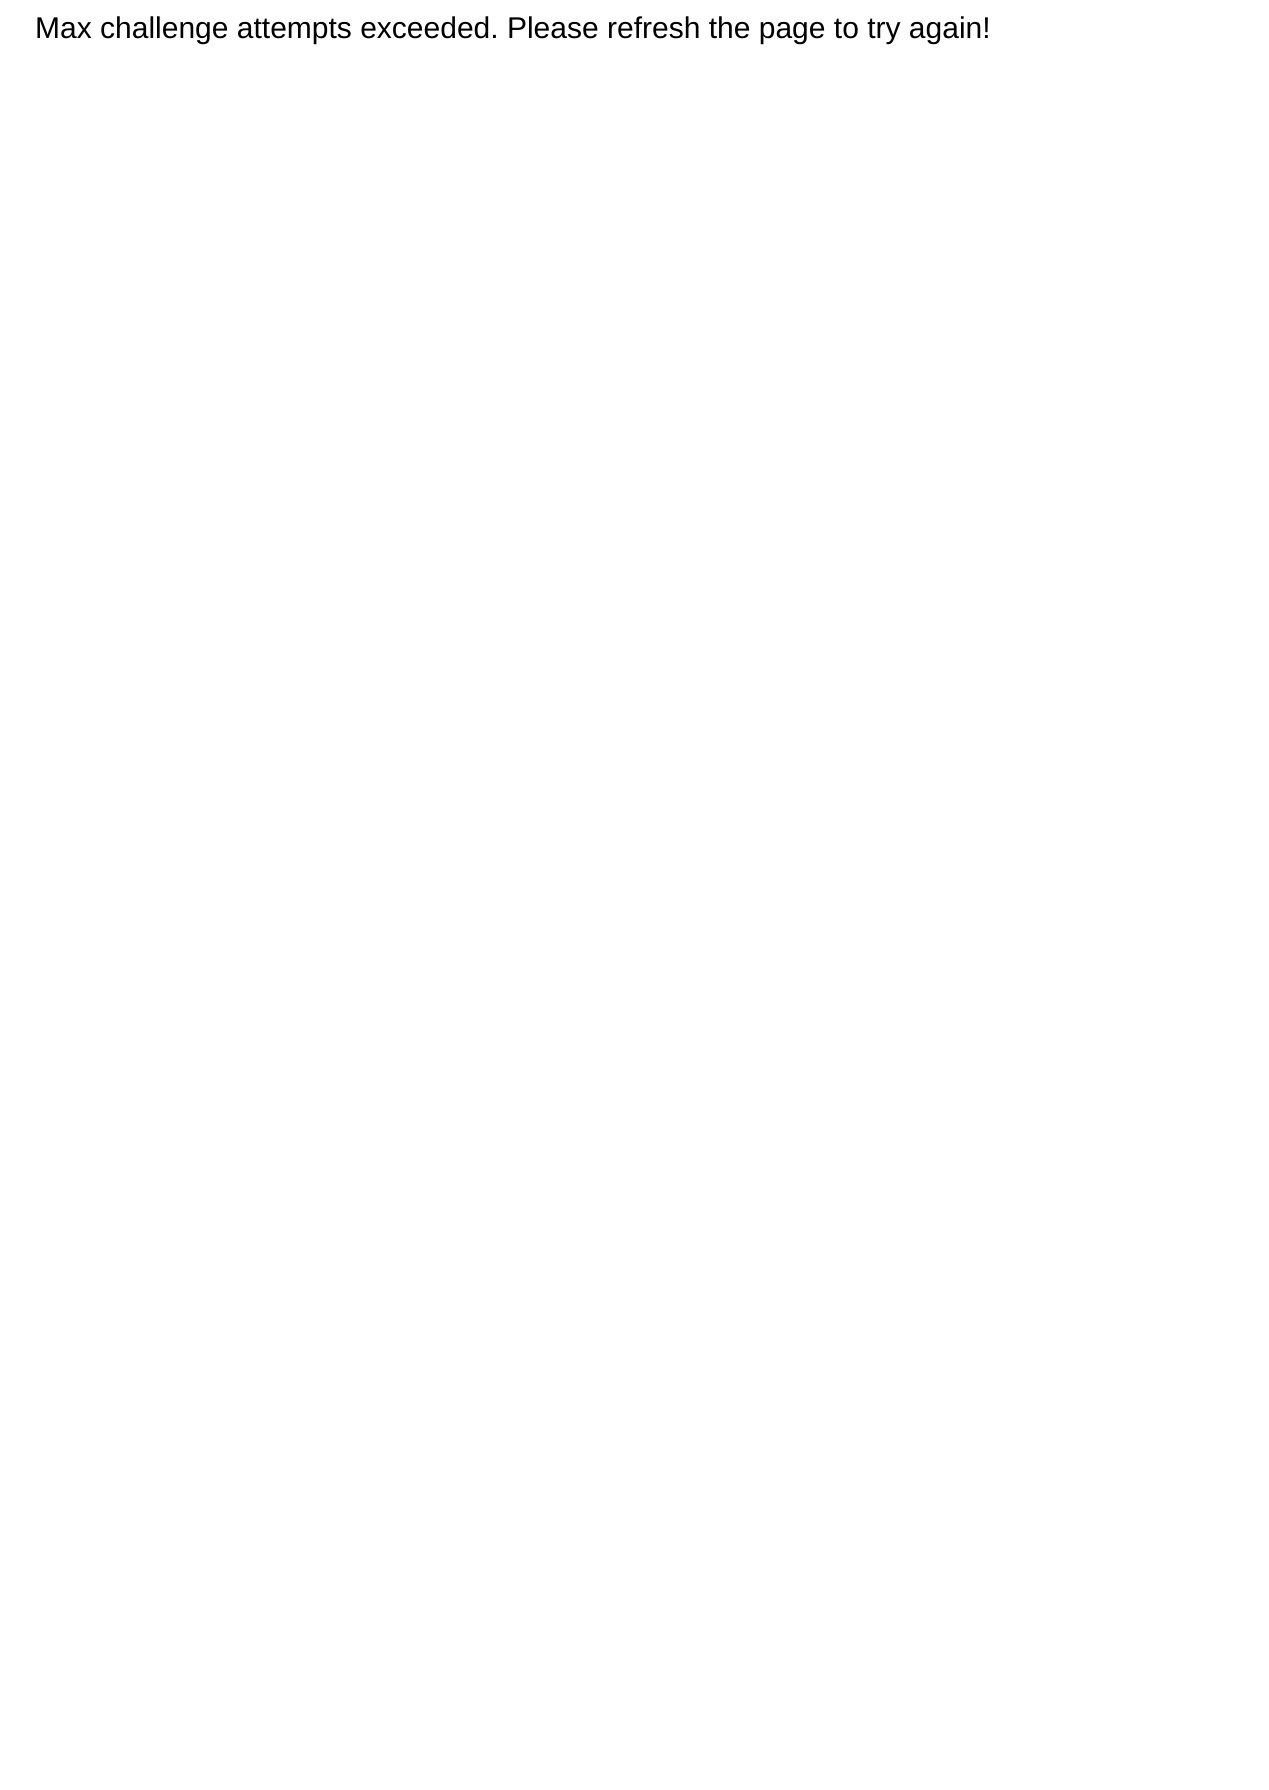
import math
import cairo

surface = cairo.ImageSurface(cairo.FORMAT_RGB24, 1269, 1790)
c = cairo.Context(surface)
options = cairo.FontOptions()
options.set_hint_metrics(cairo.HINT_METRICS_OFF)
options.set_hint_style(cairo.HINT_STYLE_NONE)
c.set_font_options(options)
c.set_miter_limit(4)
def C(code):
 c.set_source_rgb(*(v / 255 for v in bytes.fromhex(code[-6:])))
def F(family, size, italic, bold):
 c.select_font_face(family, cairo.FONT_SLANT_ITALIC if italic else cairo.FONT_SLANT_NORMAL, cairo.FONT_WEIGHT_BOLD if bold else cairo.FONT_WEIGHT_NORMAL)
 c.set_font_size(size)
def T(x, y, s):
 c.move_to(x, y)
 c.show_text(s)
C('ffffff')
c.paint()
F('Liberation Sans',30,0,0)
C('000000')
T(35,38,'Max challenge attempts exceeded. Please refresh the page to try again!')
surface.write_to_png('o.png')
